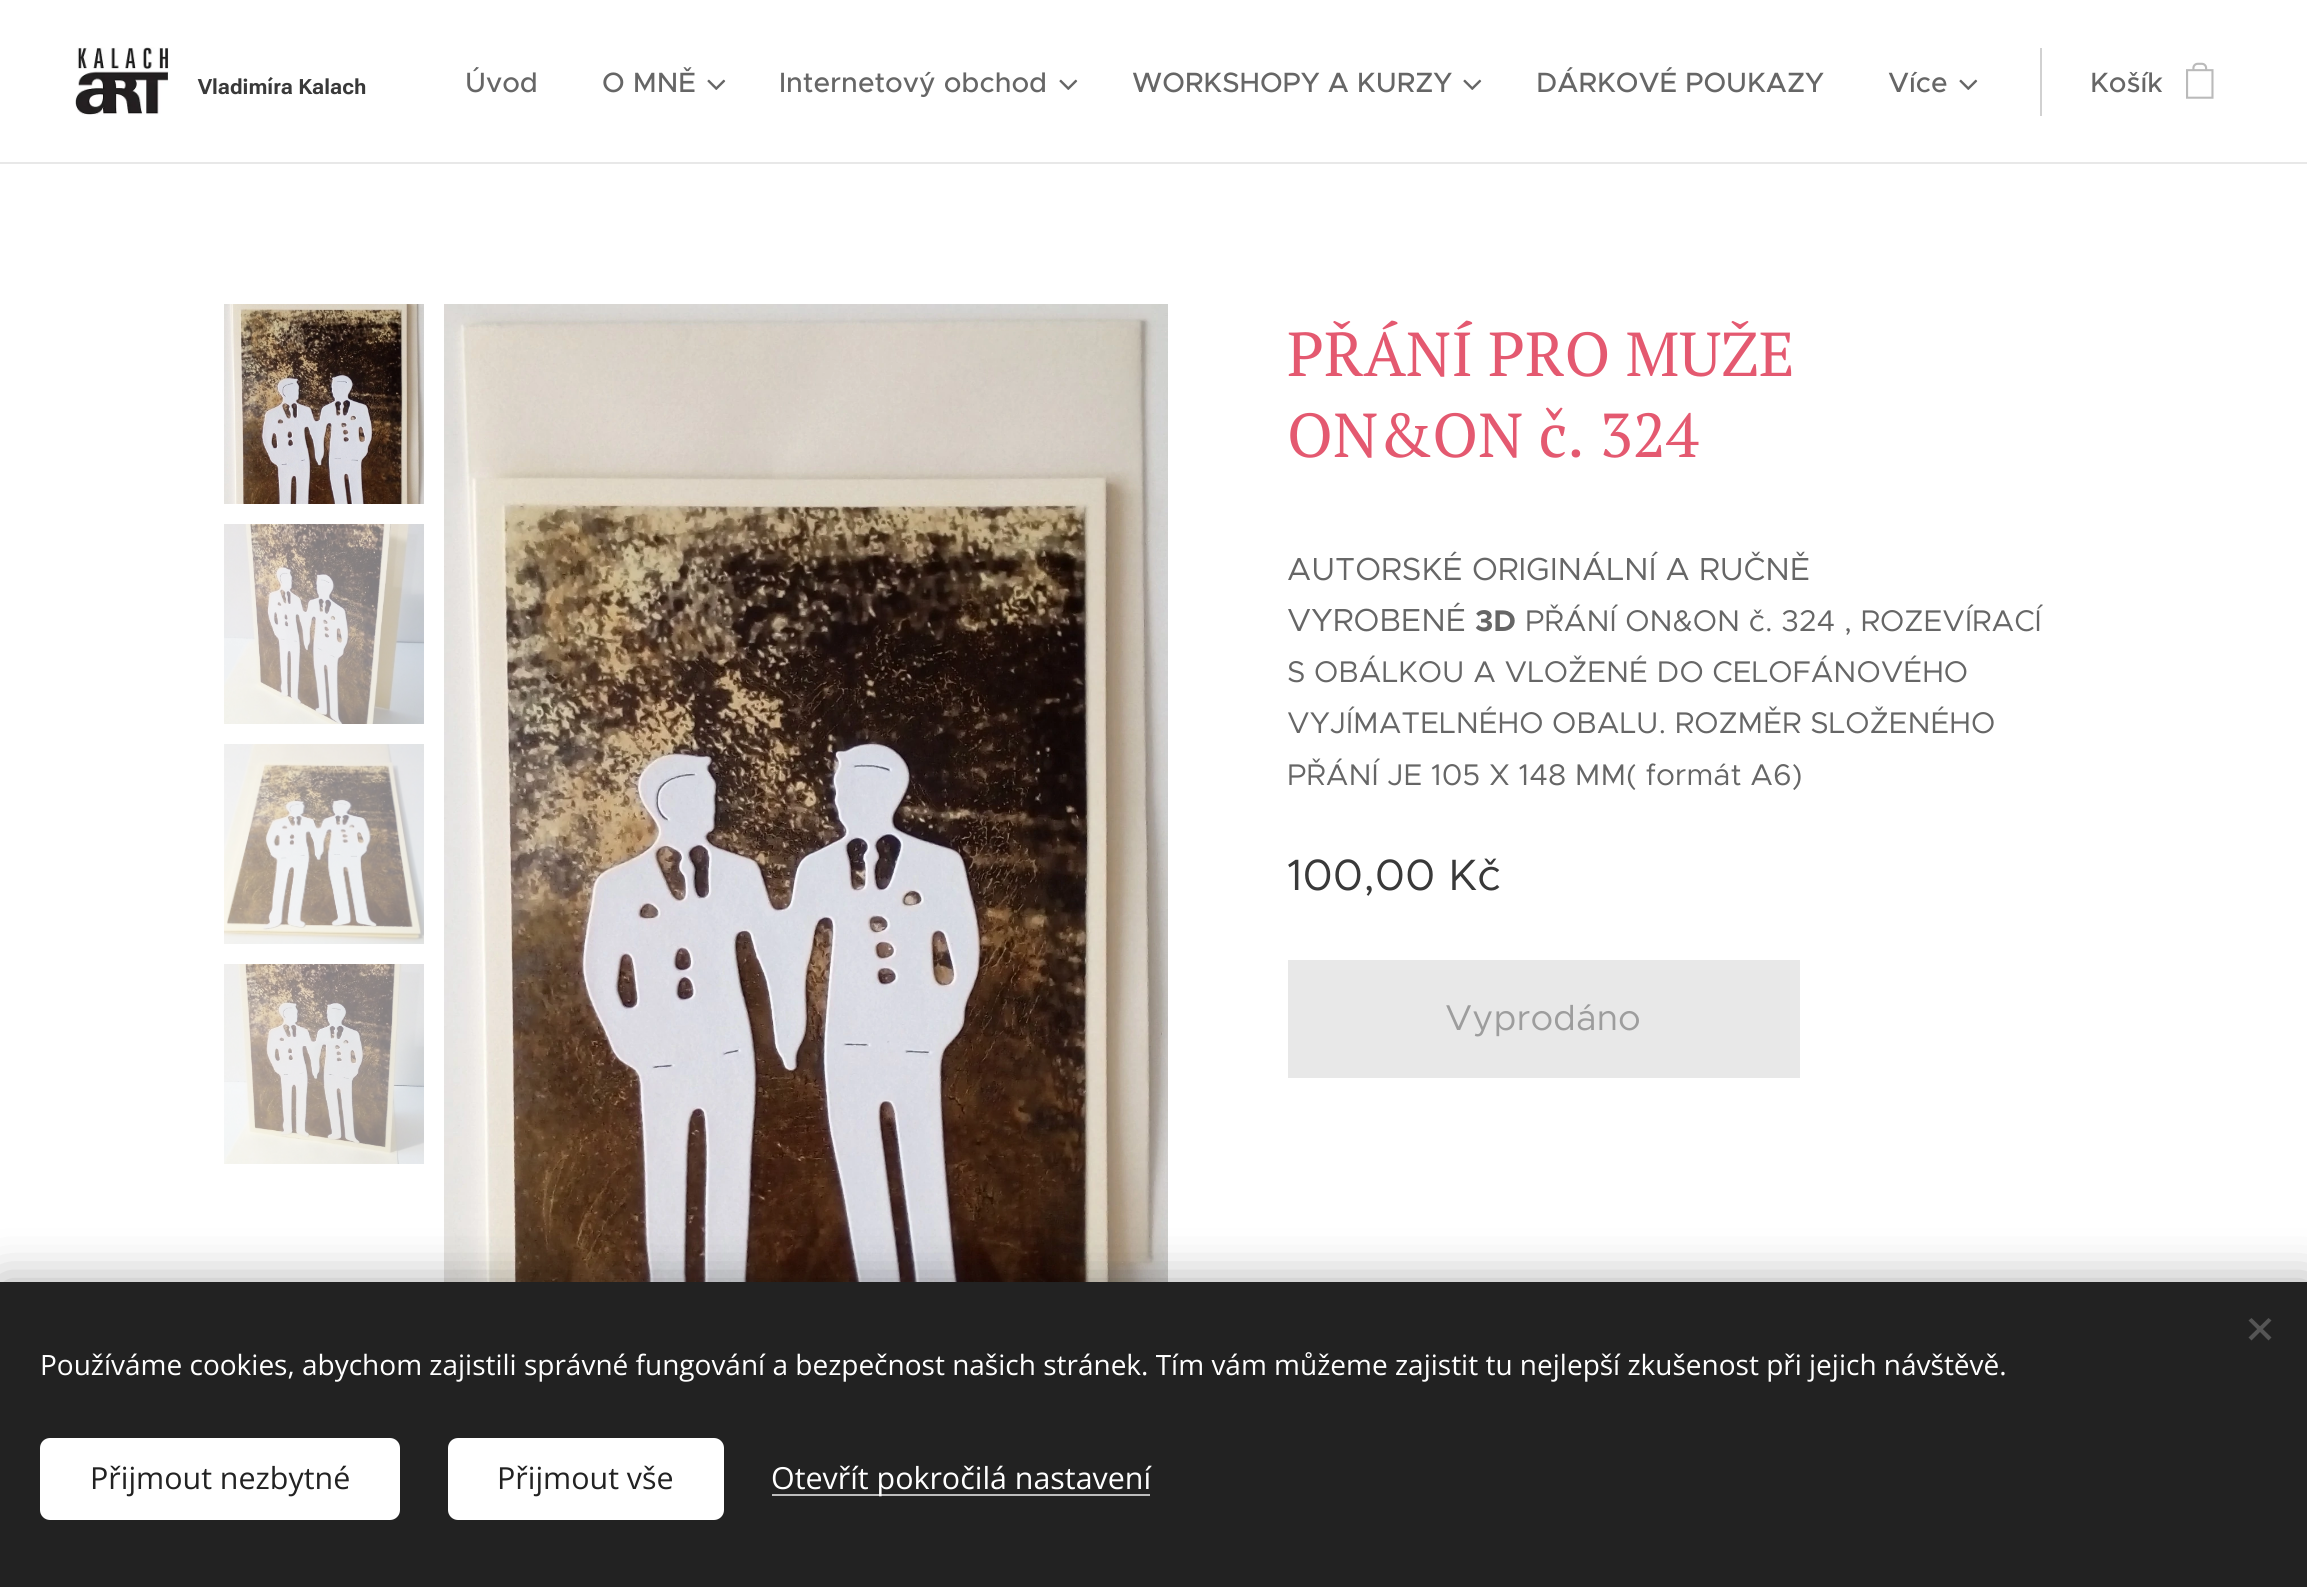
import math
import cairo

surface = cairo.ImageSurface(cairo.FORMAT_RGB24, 2307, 1587)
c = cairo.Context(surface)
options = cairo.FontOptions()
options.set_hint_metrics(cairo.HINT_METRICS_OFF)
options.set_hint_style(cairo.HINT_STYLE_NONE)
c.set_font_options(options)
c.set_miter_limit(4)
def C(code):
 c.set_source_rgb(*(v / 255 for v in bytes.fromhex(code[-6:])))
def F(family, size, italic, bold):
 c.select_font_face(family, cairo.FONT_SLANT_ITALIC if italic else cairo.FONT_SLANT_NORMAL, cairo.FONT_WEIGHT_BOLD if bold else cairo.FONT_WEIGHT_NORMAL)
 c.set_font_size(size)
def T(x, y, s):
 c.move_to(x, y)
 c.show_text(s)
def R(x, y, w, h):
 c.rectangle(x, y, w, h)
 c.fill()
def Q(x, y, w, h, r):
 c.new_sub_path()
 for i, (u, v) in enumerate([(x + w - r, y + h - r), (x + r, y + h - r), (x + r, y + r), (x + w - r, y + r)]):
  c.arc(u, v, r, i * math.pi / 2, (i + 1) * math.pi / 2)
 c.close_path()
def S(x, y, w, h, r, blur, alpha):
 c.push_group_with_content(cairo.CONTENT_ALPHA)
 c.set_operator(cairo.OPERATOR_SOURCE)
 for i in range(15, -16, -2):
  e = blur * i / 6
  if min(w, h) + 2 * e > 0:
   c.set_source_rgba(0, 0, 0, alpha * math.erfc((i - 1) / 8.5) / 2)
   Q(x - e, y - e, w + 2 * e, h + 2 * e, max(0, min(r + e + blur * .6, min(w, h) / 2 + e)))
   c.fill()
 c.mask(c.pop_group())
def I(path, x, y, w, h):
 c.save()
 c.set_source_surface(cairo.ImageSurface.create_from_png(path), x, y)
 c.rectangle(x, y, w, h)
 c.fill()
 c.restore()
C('ffffff')
c.paint()
I('1.png',75,47,94,68)
F('Roboto Flex',21,0,1)
C('393939')
T(198,94,'Vladimíra Kalach')
F('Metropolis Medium',28,0,0)
C('666666')
T(465,92,'Úvod')
T(602,92,'O MNĚ')
I('2.png',707,79,19,11)
T(779,92,'Internetový obchod')
I('2.png',1059,79,19,11)
T(1132,92,'WORKSHOPY A KURZY')
I('2.png',1463,79,19,11)
T(1536,92,'DÁRKOVÉ POUKAZY')
T(1888,92,'Více')
I('2.png',1959,79,19,11)
C('d1d1d1')
R(2040,48,2,68)
C('666666')
T(2090,92,'Košík')
I('3.png',2186,62,28,37)
C('e8e8e8')
R(0,162,2307,2)
I('4.png',224,304,200,200)
I('5.png',224,524,200,200)
I('6.png',224,744,200,200)
I('7.png',224,964,200,200)
I('8.png',444,304,724,978)
F('PT Serif',62,0,0)
C('e45970')
T(1287,376,'PŘÁNÍ PRO MUŽE')
T(1287,457,'ON&ON č. 324')
F('Metropolis',32,0,0)
C('666666')
T(1287,580,'AUTORSKÉ ORIGINÁLNÍ A RUČNĚ')
T(1287,631,'VYROBENÉ')
F('Metropolis',30,0,1)
T(1475,631,'3D')
F('Metropolis',30,0,0)
T(1525,631,'PŘÁNÍ ON&ON č. 324 , ROZEVÍRACÍ')
T(1287,682,'S OBÁLKOU A VLOŽENÉ DO CELOFÁNOVÉHO')
T(1287,733,'VYJÍMATELNÉHO OBALU. ROZMĚR SLOŽENÉHO')
T(1287,785,'PŘÁNÍ JE 105 X 148 MM( formát A6)')
F('Metropolis',44,0,0)
C('393939')
T(1287,890,'100,00 Kč')
C('e8e8e8')
R(1288,960,512,118)
F('Metropolis',36,0,0)
C('9d9d9d')
T(1445,1030,'Vyprodáno')
C('000000')
S(0,1282,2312,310,0,25,.33)
C('222222')
R(0,1282,2307,305)
C('555555')
c.new_path()
c.move_to(2248.5,1337.5)
c.line_to(2268.5,1318)
c.line_to(2271.5,1320.5)
c.line_to(2251.5,1340.5)
c.close_path()
c.fill()
c.new_path()
c.move_to(2251.5,1318)
c.line_to(2271.5,1337.5)
c.line_to(2268.5,1340.5)
c.line_to(2248.5,1320.5)
c.close_path()
c.fill()
F('Open Sans',28,0,0)
C('ffffff')
T(40,1375,'Používáme cookies, abychom zajistili správné fungování a bezpečnost našich stránek. Tím vám můžeme zajistit tu nejlepší zkušenost při jejich návštěvě.')
Q(40,1438,360,82,10)
c.fill()
F('Open Sans',30.4,0,0)
C('222222')
T(90,1489,'Přijmout nezbytné')
C('ffffff')
Q(448,1438,276,82,10)
c.fill()
C('222222')
T(497,1489,'Přijmout vše')
C('bdbdbd')
R(772,1494,378,2)
C('ffffff')
T(771,1489,'Otevřít pokročilá nastavení')
surface.write_to_png('o.png')
